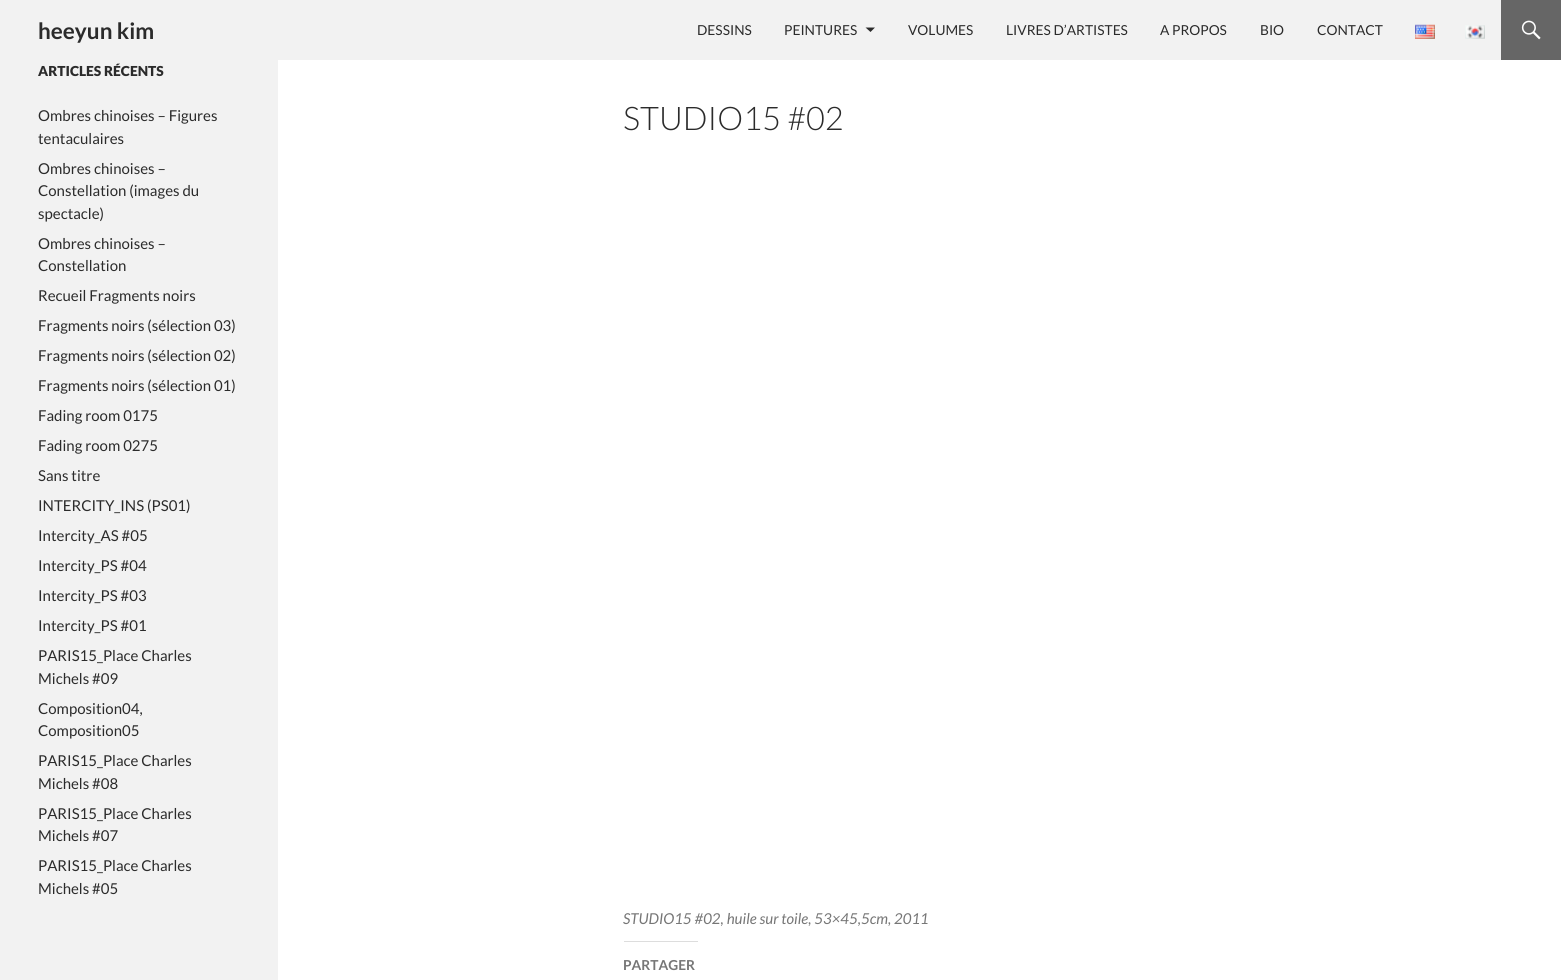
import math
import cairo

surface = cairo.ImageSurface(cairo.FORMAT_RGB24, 1561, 980)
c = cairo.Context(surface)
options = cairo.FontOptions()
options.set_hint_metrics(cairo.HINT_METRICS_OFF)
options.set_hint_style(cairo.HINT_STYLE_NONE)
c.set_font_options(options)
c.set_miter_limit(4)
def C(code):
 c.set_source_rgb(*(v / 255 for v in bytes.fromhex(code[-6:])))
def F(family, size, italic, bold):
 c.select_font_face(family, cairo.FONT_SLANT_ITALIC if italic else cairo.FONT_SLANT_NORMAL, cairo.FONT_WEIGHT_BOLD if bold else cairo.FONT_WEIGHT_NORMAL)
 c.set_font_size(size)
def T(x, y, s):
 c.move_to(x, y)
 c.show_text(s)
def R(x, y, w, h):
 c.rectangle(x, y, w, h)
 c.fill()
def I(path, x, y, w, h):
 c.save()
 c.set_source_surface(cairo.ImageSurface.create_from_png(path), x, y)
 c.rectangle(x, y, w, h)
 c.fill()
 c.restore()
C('ffffff')
c.paint()
C('f2f2f2')
R(0,0,1501,60)
F('Lato',22.5,0,1)
C('2b2b2b')
T(38,39,'heeyun kim')
F('Lato',13.75,0,0)
T(697,35,'DESSINS')
T(784,35,'PEINTURES')
c.new_path()
c.move_to(865.5,27.5)
c.line_to(875,27.5)
c.line_to(870.5,32)
c.close_path()
c.fill()
T(908,35,'VOLUMES')
T(1006,35,'LIVRES D’ARTISTES')
T(1160,35,'A PROPOS')
T(1260,35,'BIO')
T(1317,35,'CONTACT')
I('1.png',1415,24,20,15)
I('2.png',1465,25,20,14)
C('666666')
R(1501,0,60,60)
I('3.png',1521,20,20,20)
C('f2f2f2')
R(0,60,278,920)
F('Lato Black',13.75,0,0)
C('2b2b2b')
T(38,76,'ARTICLES RÉCENTS')
F('Lato',15,0,0)
T(38,121,'Ombres chinoises – Figures')
T(38,144,'tentaculaires')
T(38,174,'Ombres chinoises –')
T(38,196,'Constellation (images du')
T(38,219,'spectacle)')
T(38,249,'Ombres chinoises –')
T(38,271,'Constellation')
T(38,301,'Recueil Fragments noirs')
T(38,331,'Fragments noirs (sélection 03)')
T(38,361,'Fragments noirs (sélection 02)')
T(38,391,'Fragments noirs (sélection 01)')
T(38,421,'Fading room 0175')
T(38,451,'Fading room 0275')
T(38,481,'Sans titre')
T(38,511,'INTERCITY_INS (PS01)')
T(38,541,'Intercity_AS #05')
T(38,571,'Intercity_PS #04')
T(38,601,'Intercity_PS #03')
T(38,631,'Intercity_PS #01')
T(38,661,'PARIS15_Place Charles')
T(38,684,'Michels #09')
T(38,714,'Composition04,')
T(38,736,'Composition05')
T(38,766,'PARIS15_Place Charles')
T(38,789,'Michels #08')
T(38,819,'PARIS15_Place Charles')
T(38,841,'Michels #07')
T(38,871,'PARIS15_Place Charles')
T(38,894,'Michels #05')
F('Lato Light',32.5,0,0)
T(623,130,'STUDIO15 #02')
F('Lato',15,1,0)
C('767676')
T(623,924,'STUDIO15 #02, huile sur toile, 53×45,5cm, 2011')
C('dddddd')
R(624,941,74,1)
F('Lato',13.75,0,1)
C('767676')
T(623,970,'PARTAGER')
surface.write_to_png('o.png')
